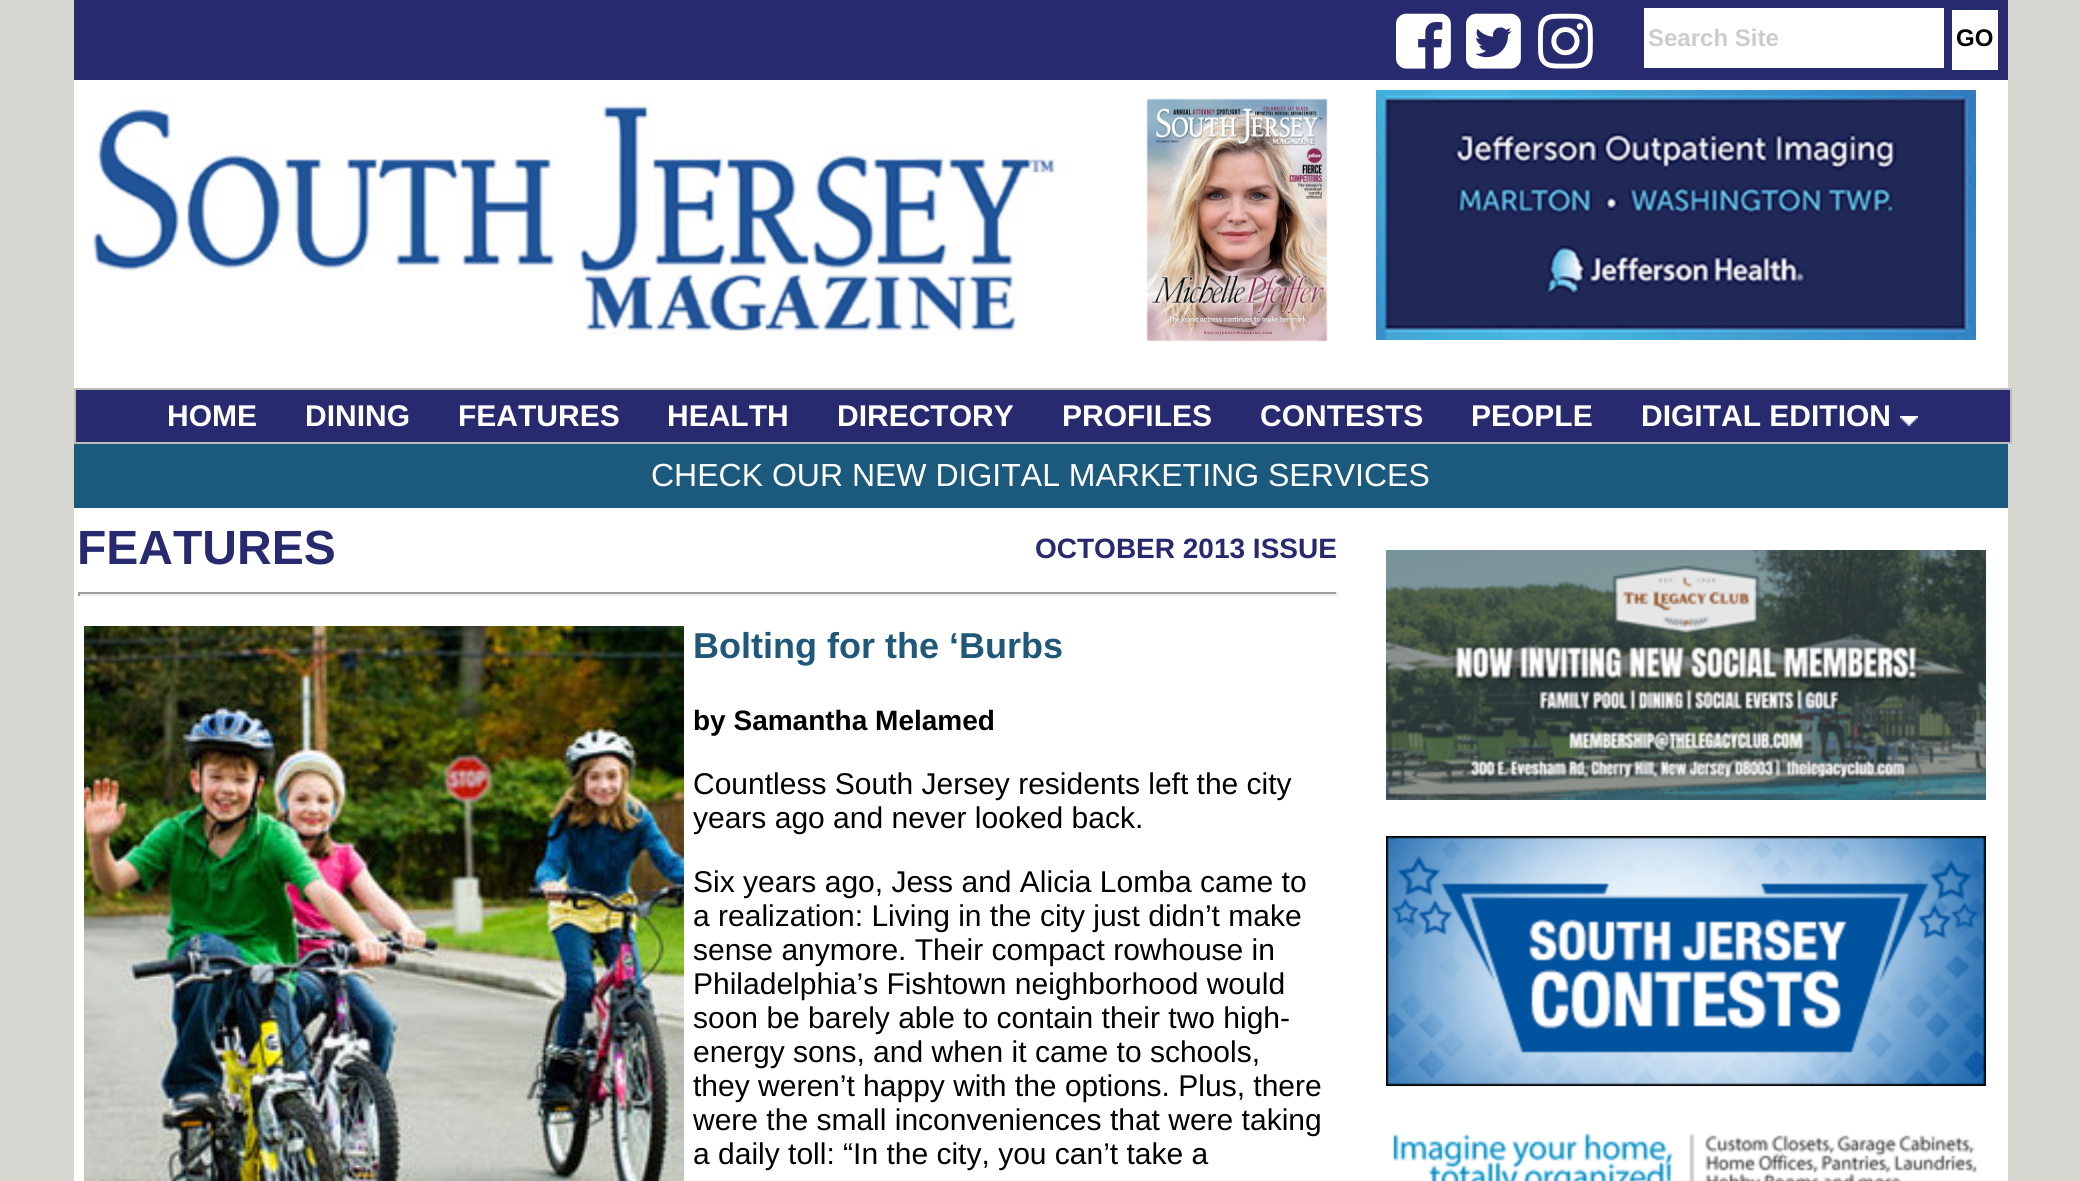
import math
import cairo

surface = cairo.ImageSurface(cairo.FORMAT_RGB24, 2080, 1181)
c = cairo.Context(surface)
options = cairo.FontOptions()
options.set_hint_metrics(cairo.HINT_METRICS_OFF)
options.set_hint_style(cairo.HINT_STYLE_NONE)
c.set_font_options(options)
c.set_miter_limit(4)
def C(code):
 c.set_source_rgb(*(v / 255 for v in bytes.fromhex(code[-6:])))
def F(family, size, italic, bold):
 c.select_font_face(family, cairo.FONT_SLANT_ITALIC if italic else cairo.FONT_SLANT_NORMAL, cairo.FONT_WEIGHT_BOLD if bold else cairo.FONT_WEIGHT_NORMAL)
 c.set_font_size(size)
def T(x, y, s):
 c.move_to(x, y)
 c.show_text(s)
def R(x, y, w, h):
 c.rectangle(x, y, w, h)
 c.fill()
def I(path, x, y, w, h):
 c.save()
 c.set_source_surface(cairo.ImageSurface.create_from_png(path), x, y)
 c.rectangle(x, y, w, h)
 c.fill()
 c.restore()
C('d8d6d0')
c.paint()
C('ffffff')
R(74,80,1934,1101)
C('272a6f')
R(74,0,1934,80)
I('1.png',1396,13,55,56)
I('2.png',1466,13,55,56)
I('3.png',1538,13,55,56)
C('ffffff')
R(1644,8,300,60)
F('Liberation Sans',24,0,1)
C('cccccc')
T(1648,46,'Search Site')
C('ffffff')
R(1952,10,46,60)
C('000000')
T(1956,46,'GO')
I('4.png',90,96,976,240)
I('5.png',1146,98,182,244)
I('6.png',1376,90,600,250)
C('272a6f')
c.rectangle(75,389,1936,54)
c.fill_preserve()
C('bbbbbb')
c.stroke()
F('Liberation Sans',30,0,1)
C('ffffff')
T(167,426,'HOME')
T(305,426,'DINING')
T(458,426,'FEATURES')
T(667,426,'HEALTH')
T(837,426,'DIRECTORY')
T(1062,426,'PROFILES')
T(1260,426,'CONTESTS')
T(1471,426,'PEOPLE')
T(1641,426,'DIGITAL EDITION')
I('7.png',1900,416,18,10)
C('1b5a7d')
R(74,444,1934,64)
F('Liberation Sans',32,0,0)
C('ffffff')
T(651,486,'CHECK OUR NEW DIGITAL MARKETING SERVICES')
F('Liberation Sans',48,0,1)
C('272a6f')
T(77,564,'FEATURES')
F('Liberation Sans',28,0,1)
T(1035,558,'OCTOBER 2013 ISSUE')
C('9f9f9f')
R(78,592,1260,2)
C('eeeeee')
R(1336,592,2,4)
R(78,594,1260,2)
C('9f9f9f')
R(78,592,2,4)
I('8.png',84,626,600,555)
F('Liberation Sans',36,0,1)
C('205879')
T(693,658,'Bolting for the ‘Burbs')
F('Liberation Sans',28,0,1)
C('000000')
T(693,730,'by Samantha Melamed')
F('Liberation Sans',30,0,0)
T(693,794,'Countless South Jersey residents left the city')
T(693,828,'years ago and never looked back.')
T(693,892,'Six years ago, Jess and Alicia Lomba came to')
T(693,926,'a realization: Living in the city just didn’t make')
T(693,960,'sense anymore. Their compact rowhouse in')
T(693,994,'Philadelphia’s Fishtown neighborhood would')
T(693,1028,'soon be barely able to contain their two high-')
T(693,1062,'energy sons, and when it came to schools,')
T(693,1096,'they weren’t happy with the options. Plus, there')
T(693,1130,'were the small inconveniences that were taking')
T(693,1164,'a daily toll: “In the city, you can’t take a')
I('9.png',1386,550,600,250)
I('10.png',1386,836,600,250)
I('11.png',1393,1133,584,48)
surface.write_to_png('o.png')
